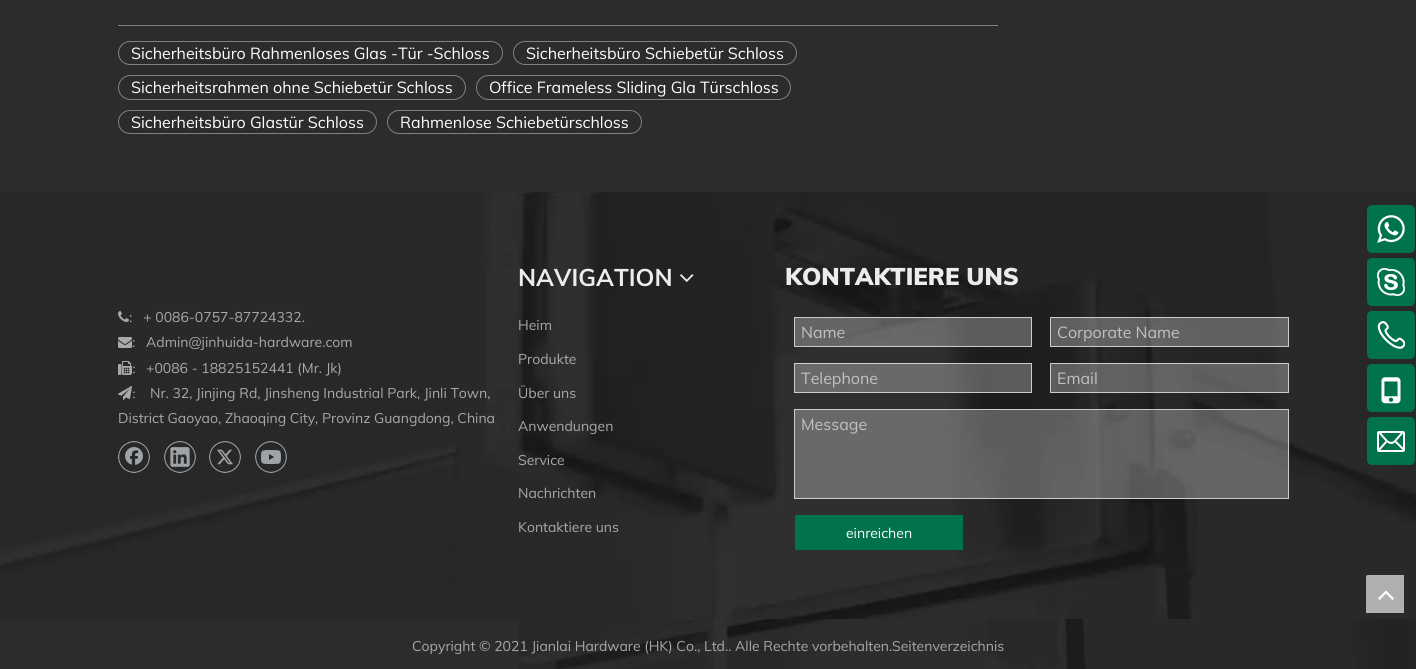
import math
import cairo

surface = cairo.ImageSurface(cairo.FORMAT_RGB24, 1416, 669)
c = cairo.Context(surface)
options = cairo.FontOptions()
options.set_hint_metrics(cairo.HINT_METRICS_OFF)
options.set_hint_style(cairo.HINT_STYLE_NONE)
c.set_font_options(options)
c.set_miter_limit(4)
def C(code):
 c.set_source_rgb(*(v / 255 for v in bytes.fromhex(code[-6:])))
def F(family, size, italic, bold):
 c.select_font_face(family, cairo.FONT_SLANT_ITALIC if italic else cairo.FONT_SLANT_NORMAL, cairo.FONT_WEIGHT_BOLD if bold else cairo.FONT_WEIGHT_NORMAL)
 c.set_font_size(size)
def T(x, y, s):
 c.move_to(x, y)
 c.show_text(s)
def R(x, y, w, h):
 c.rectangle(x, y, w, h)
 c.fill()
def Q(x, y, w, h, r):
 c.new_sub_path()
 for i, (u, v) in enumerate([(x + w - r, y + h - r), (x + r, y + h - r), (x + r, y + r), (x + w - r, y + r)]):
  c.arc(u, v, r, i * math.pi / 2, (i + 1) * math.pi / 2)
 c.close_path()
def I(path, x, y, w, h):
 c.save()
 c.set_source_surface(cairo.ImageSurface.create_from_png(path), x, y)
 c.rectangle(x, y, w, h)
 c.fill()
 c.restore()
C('2c2c2c')
c.paint()
C('818181')
R(118,25,880,1)
Q(118.5,41.5,384,23,11.5)
c.set_line_width(1)
c.stroke()
F('Muli',16,0,0)
C('ffffff')
T(131,59,'Sicherheitsbüro Rahmenloses Glas -Tür -Schloss')
Q(513.5,41.5,283,23,11.5)
C('818181')
c.stroke()
C('ffffff')
T(526,59,'Sicherheitsbüro Schiebetür Schloss')
Q(118.5,75.5,347,24,12)
C('818181')
c.stroke()
C('ffffff')
T(131,93,'Sicherheitsrahmen ohne Schiebetür Schloss')
Q(476.5,75.5,314,24,12)
C('818181')
c.stroke()
C('ffffff')
T(489,93,'Office Frameless Sliding Gla Türschloss')
Q(118.5,110.5,258,23,11.5)
C('818181')
c.stroke()
C('ffffff')
T(131,128,'Sicherheitsbüro Glastür Schloss')
Q(387.5,110.5,254,23,11.5)
C('818181')
c.stroke()
C('ffffff')
T(400,128,'Rahmenlose Schiebetürschloss')
I('1.png',0,192,1416,427)
I('2.png',118,311,11,11)
F('Muli',14,0,0)
C('a9a9a9')
T(129,322,':   + 0086-0757-87724332.')
I('3.png',118,337,14,11)
T(132,347,':')
T(146,347,'Admin@jinhuida-hardware.com')
I('4.png',118,361,14,14)
F('Liberation Serif',14,0,0)
T(132,373,':')
F('Muli',14,0,0)
T(146,373,'+0086 - 18825152441 (Mr. Jk)')
I('5.png',118,386,14,14)
F('Liberation Serif',14,0,0)
T(132,398,':')
F('Muli',14,0,0)
T(150,398,'Nr. 32, Jinjing Rd, Jinsheng Industrial Park, Jinli Town,')
T(118,423,'District Gaoyao, Zhaoqing City, Provinz Guangdong, China')
I('6.png',118,441,32,32)
I('7.png',164,441,32,32)
I('8.png',209,441,32,32)
I('9.png',255,441,32,32)
F('Muli',24,0,1)
C('ececec')
T(518,286,'NAVIGATION')
I('10.png',680,274,14,8)
F('Muli',14,0,0)
C('a9a9a9')
T(518,330,'Heim')
T(518,364,'Produkte')
T(518,398,'Über uns')
T(518,431,'Anwendungen')
T(518,465,'Service')
T(518,498,'Nachrichten')
T(518,532,'Kontaktiere uns')
F('Muli Black',24,0,0)
C('ececec')
T(785,285,'KONTAKTIERE UNS')
c.set_source_rgba(1,1,1,0.28)
c.rectangle(794.5,317.5,237,29)
c.fill_preserve()
C('cccccc')
c.stroke()
F('Muli',16,0,0)
C('c1c1c1')
T(801,338,'Name')
c.set_source_rgba(1,1,1,0.28)
c.rectangle(1050.5,317.5,238,29)
c.fill_preserve()
C('cccccc')
c.stroke()
C('c1c1c1')
T(1057,338,'Corporate Name')
c.set_source_rgba(1,1,1,0.28)
c.rectangle(794.5,363.5,237,29)
c.fill_preserve()
C('cccccc')
c.stroke()
C('c1c1c1')
T(801,384,'Telephone')
c.set_source_rgba(1,1,1,0.28)
c.rectangle(1050.5,363.5,238,29)
c.fill_preserve()
C('cccccc')
c.stroke()
C('c1c1c1')
T(1057,384,'Email')
c.set_source_rgba(1,1,1,0.28)
c.rectangle(794.5,409.5,494,89)
c.fill_preserve()
C('cccccc')
c.stroke()
C('c1c1c1')
T(801,430,'Message')
C('00734a')
R(795,515,168,35)
F('Muli',14,0,0)
C('ffffff')
T(846,538,'einreichen')
C('00734a')
Q(1367,205,48,48,5)
c.fill()
I('11.png',1377,215,28,28)
Q(1367,258,48,48,5)
c.fill()
I('12.png',1377,268,28,28)
Q(1367,311,48,48,5)
c.fill()
I('13.png',1377,321,28,28)
Q(1367,364,48,48,5)
c.fill()
I('14.png',1381,377,20,27)
Q(1367,417,48,48,5)
c.fill()
I('15.png',1377,431,28,21)
I('16.png',519,619,897,50)
C('a9a9a9')
T(412,651,'Copyright © 2021 Jianlai Hardware (HK) Co., Ltd.. Alle Rechte vorbehalten.')
T(892,651,'Seitenverzeichnis')
I('17.png',1366,575,38,38)
surface.write_to_png('o.png')
